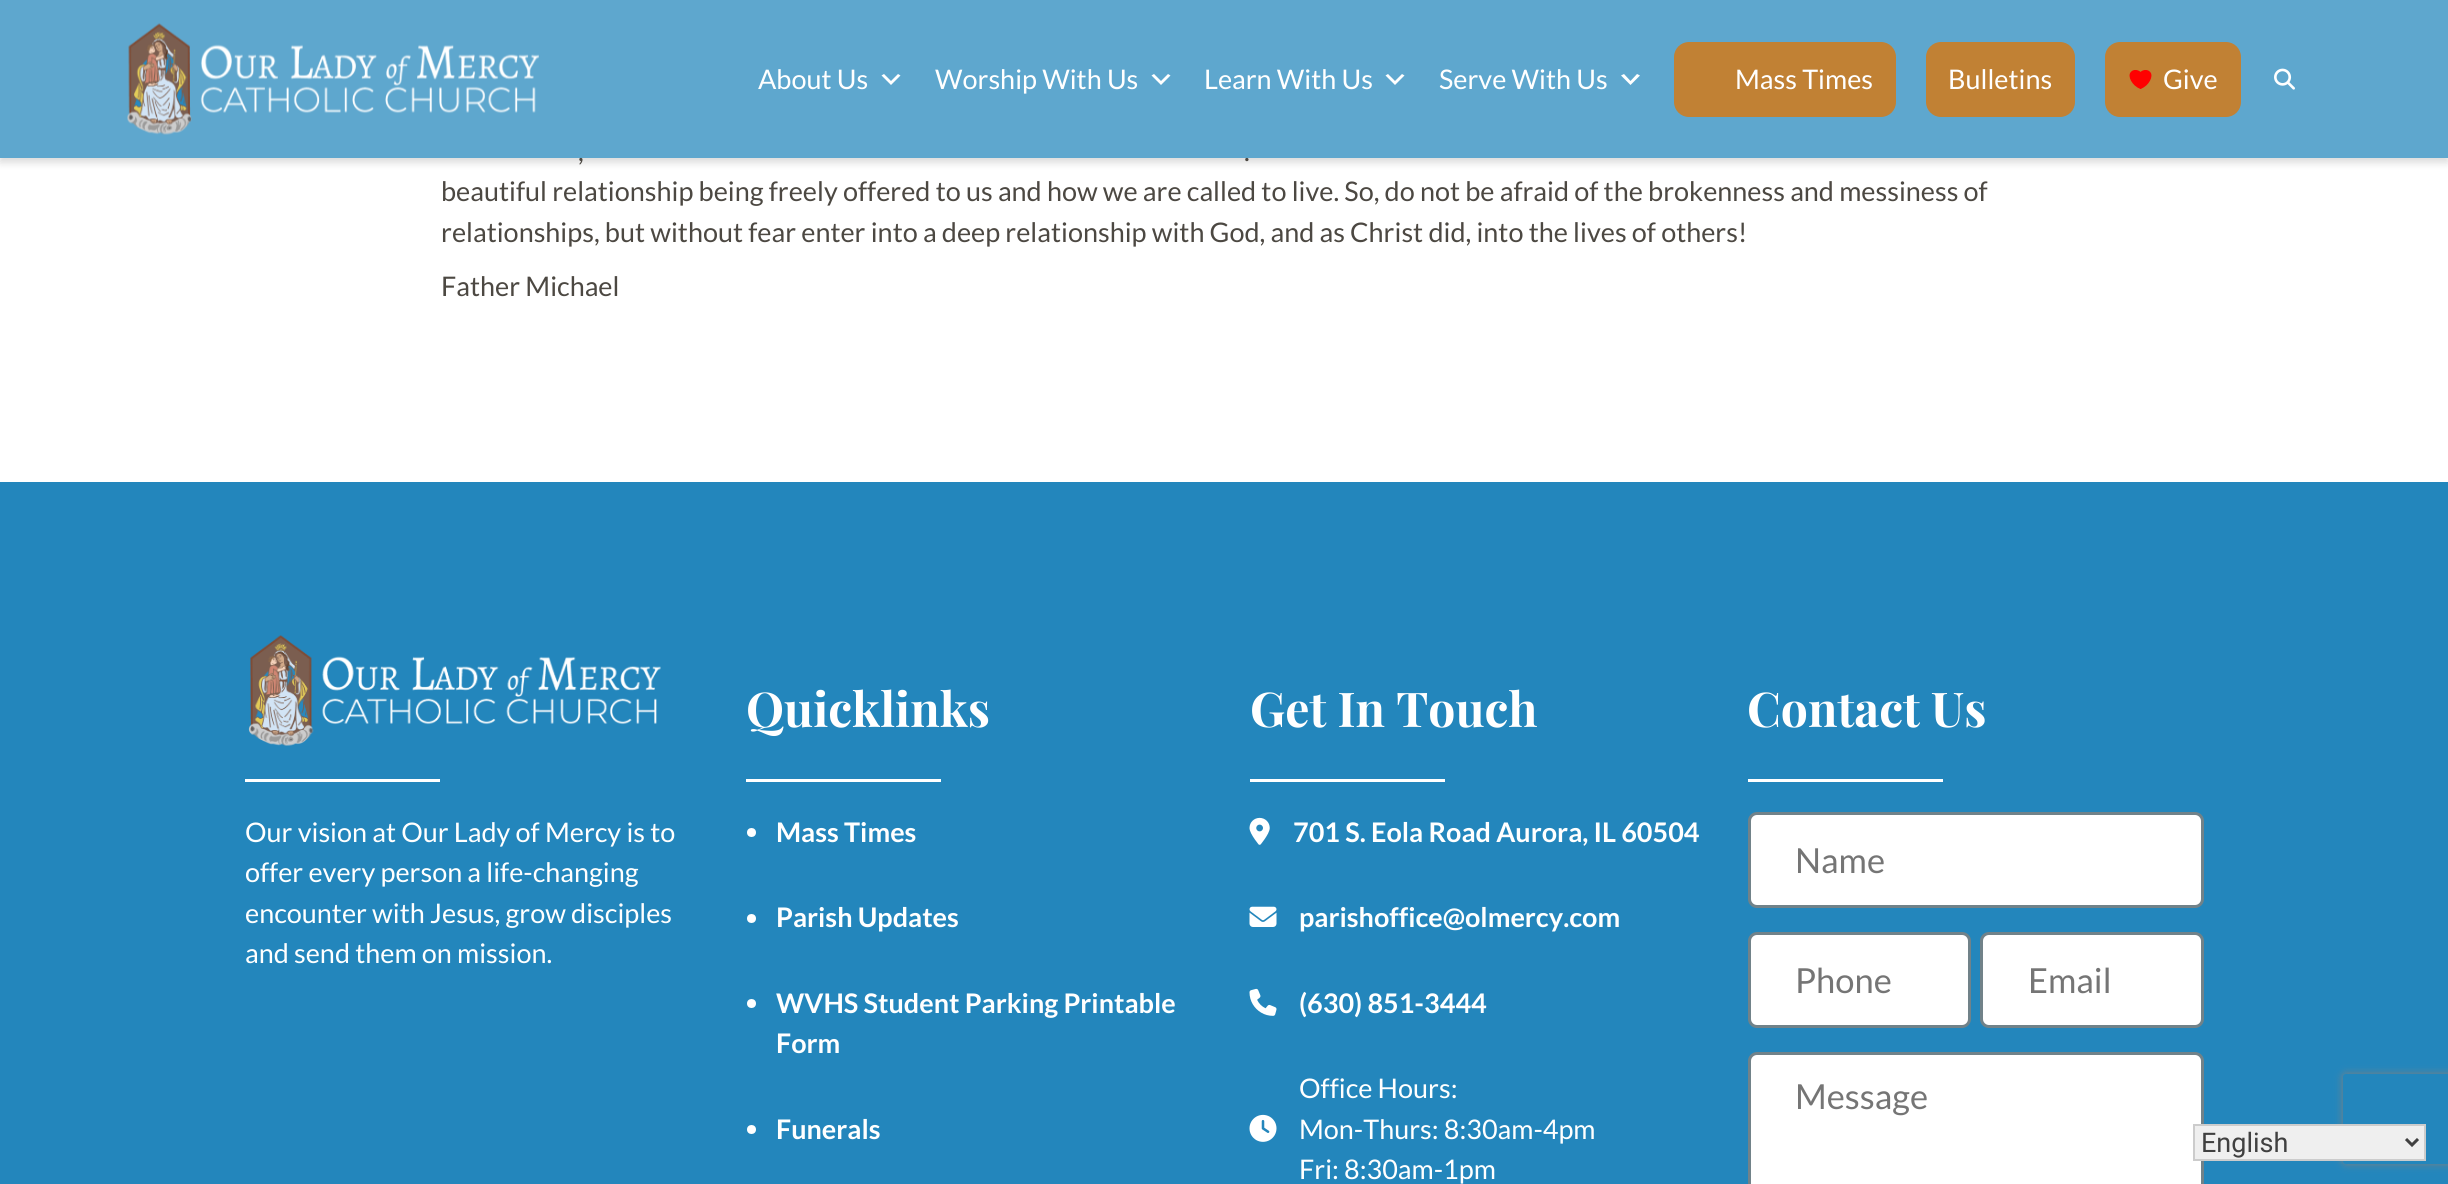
import math
import cairo

surface = cairo.ImageSurface(cairo.FORMAT_RGB24, 2448, 1184)
c = cairo.Context(surface)
options = cairo.FontOptions()
options.set_hint_metrics(cairo.HINT_METRICS_OFF)
options.set_hint_style(cairo.HINT_STYLE_NONE)
c.set_font_options(options)
c.set_miter_limit(4)
def C(code):
 c.set_source_rgb(*(v / 255 for v in bytes.fromhex(code[-6:])))
def F(family, size, italic, bold):
 c.select_font_face(family, cairo.FONT_SLANT_ITALIC if italic else cairo.FONT_SLANT_NORMAL, cairo.FONT_WEIGHT_BOLD if bold else cairo.FONT_WEIGHT_NORMAL)
 c.set_font_size(size)
def T(x, y, s):
 c.move_to(x, y)
 c.show_text(s)
def R(x, y, w, h):
 c.rectangle(x, y, w, h)
 c.fill()
def Q(x, y, w, h, r):
 c.new_sub_path()
 for i, (u, v) in enumerate([(x + w - r, y + h - r), (x + r, y + h - r), (x + r, y + r), (x + w - r, y + r)]):
  c.arc(u, v, r, i * math.pi / 2, (i + 1) * math.pi / 2)
 c.close_path()
def S(x, y, w, h, r, blur, alpha):
 c.push_group_with_content(cairo.CONTENT_ALPHA)
 c.set_operator(cairo.OPERATOR_SOURCE)
 for i in range(15, -16, -2):
  e = blur * i / 6
  if min(w, h) + 2 * e > 0:
   c.set_source_rgba(0, 0, 0, alpha * math.erfc((i - 1) / 8.5) / 2)
   Q(x - e, y - e, w + 2 * e, h + 2 * e, max(0, min(r + e + blur * .6, min(w, h) / 2 + e)))
   c.fill()
 c.mask(c.pop_group())
def I(path, x, y, w, h):
 c.save()
 c.set_source_surface(cairo.ImageSurface.create_from_png(path), x, y)
 c.rectangle(x, y, w, h)
 c.fill()
 c.restore()
C('ffffff')
c.paint()
c.save()
c.set_fill_rule(cairo.FILL_RULE_EVEN_ODD)
c.new_path()
c.move_to(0,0)
c.line_to(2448,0)
c.line_to(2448,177)
c.line_to(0,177)
c.close_path()
c.move_to(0,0)
c.line_to(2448,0)
c.line_to(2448,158)
c.line_to(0,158)
c.close_path()
c.clip()
C('000000')
S(0,5,2448,157,0,4.5,.16)
c.restore()
F('Lato',27,0,0)
C('4c4842')
T(578,161,',')
T(1244,161,'.')
c.set_source_rgba(0.137,0.525,0.737,0.73)
R(0,0,2448,158)
I('1.png',127,23,412,112)
C('ffffff')
T(758,89,'About Us')
c.new_path()
c.move_to(884,74)
c.line_to(891,81)
c.line_to(898,74)
c.line_to(900.5,75.5)
c.line_to(891,85)
c.line_to(881.5,75.5)
c.close_path()
c.fill()
T(935,89,'Worship With Us')
c.new_path()
c.move_to(1154,74)
c.line_to(1161,81)
c.line_to(1168,74)
c.line_to(1170.5,75.5)
c.line_to(1161,85)
c.line_to(1151.5,75.5)
c.close_path()
c.fill()
T(1204,89,'Learn With Us')
c.new_path()
c.move_to(1388,74)
c.line_to(1395,81)
c.line_to(1402,74)
c.line_to(1404.5,75.5)
c.line_to(1395,85)
c.line_to(1385.5,75.5)
c.close_path()
c.fill()
T(1439,89,'Serve With Us')
c.new_path()
c.move_to(1624,74)
c.line_to(1630.5,81)
c.line_to(1637,74)
c.line_to(1640,75.5)
c.line_to(1630.5,85)
c.line_to(1621,75.5)
c.close_path()
c.fill()
C('c18134')
Q(1674,42,222,75,15)
c.fill()
C('ffffff')
T(1735,89,'Mass Times')
C('c18134')
Q(1926,42,149,75,15)
c.fill()
C('ffffff')
T(1948,89,'Bulletins')
C('c18134')
Q(2105,42,136,75,15)
c.fill()
I('2.png',2129,70,23,19)
C('ffffff')
T(2163,89,'Give')
I('3.png',2274,68,21,22)
C('4c4842')
T(441,201,'beautiful relationship being freely offered to us and how we are called to live. So, do not be afraid of the brokenness and messiness of')
T(441,242,'relationships, but without fear enter into a deep relationship with God, and as Christ did, into the lives of others!')
T(441,296,'Father Michael')
C('2386bc')
R(0,482,2448,702)
I('4.png',248,635,413,111)
C('ffffff')
R(245,779,195,3)
T(245,842,'Our vision at Our Lady of Mercy is to')
T(245,882,'offer every person a life-changing')
T(245,923,'encounter with Jesus, grow disciples')
T(245,963,'and send them on mission.')
F('Playfair Display',48,0,1)
T(746,727,'Quicklinks')
R(746,779,195,3)
c.new_path()
c.arc(751.5,832.5,4.5,0,2 * math.pi)
c.fill()
F('Lato',27,0,1)
T(776,842,'Mass Times')
c.new_path()
c.arc(751.5,918.5,4.5,0,2 * math.pi)
c.fill()
T(776,927,'Parish Updates')
c.new_path()
c.arc(751.5,1003.5,4.5,0,2 * math.pi)
c.fill()
T(776,1013,'WVHS Student Parking Printable')
T(776,1053,'Form')
c.new_path()
c.arc(751.5,1129.5,4.5,0,2 * math.pi)
c.fill()
T(776,1139,'Funerals')
F('Playfair Display',48,0,1)
T(1250,727,'Get In Touch')
R(1250,779,195,3)
I('5.png',1249,817,21,28)
F('Lato',27,0,1)
T(1293,842,'701 S. Eola Road Aurora, IL 60504')
I('6.png',1249,906,28,21)
T(1299,927,'parishoffice@olmercy.com')
I('7.png',1249,988,28,28)
T(1299,1013,'(630) 851-3444')
I('8.png',1249,1114,28,28)
F('Lato',27,0,0)
T(1299,1098,'Office Hours:')
T(1299,1139,'Mon-Thurs: 8:30am-4pm')
T(1299,1179,'Fri: 8:30am-1pm')
F('Playfair Display',48,0,1)
T(1747,727,'Contact Us')
R(1748,779,195,3)
Q(1749.5,813.5,453,93,7.5)
c.fill_preserve()
C('718289')
c.set_line_width(3)
c.stroke()
F('Lato',34.5,0,0)
C('757575')
T(1795,873,'Name')
C('ffffff')
Q(1749.5,933.5,220,93,7.5)
c.fill_preserve()
C('718289')
c.stroke()
C('757575')
T(1795,993,'Phone')
C('ffffff')
Q(1981.5,933.5,221,93,7.5)
c.fill_preserve()
C('718289')
c.stroke()
C('757575')
T(2028,993,'Email')
C('ffffff')
Q(1749.5,1053.5,453,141,7.5)
c.fill_preserve()
C('718289')
c.stroke()
C('757575')
T(1795,1109,'Message')
c.save()
c.set_fill_rule(cairo.FILL_RULE_EVEN_ODD)
c.new_path()
c.move_to(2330,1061)
c.line_to(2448,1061)
c.line_to(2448,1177)
c.line_to(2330,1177)
c.close_path()
c.move_to(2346,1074)
c.line_to(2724,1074)
c.curve_to(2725.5,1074,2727,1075.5,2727,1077)
c.line_to(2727,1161)
c.curve_to(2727,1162.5,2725.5,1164,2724,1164)
c.line_to(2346,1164)
c.curve_to(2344.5,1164,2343,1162.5,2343,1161)
c.line_to(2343,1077)
c.curve_to(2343,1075.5,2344.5,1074,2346,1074)
c.close_path()
c.clip()
C('808080')
S(2343,1074,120,90,3,4,1)
c.restore()
C('efefef')
c.rectangle(2194,1125,231,35)
c.fill_preserve()
C('cccccc')
c.set_line_width(2)
c.stroke()
c.new_path()
c.move_to(2406,1139)
c.line_to(2412,1145)
c.line_to(2418,1139)
C('404040')
c.set_line_width(3)
c.stroke()
F('Roboto',27,0,0)
T(2201,1152,'English')
surface.write_to_png('o.png')
